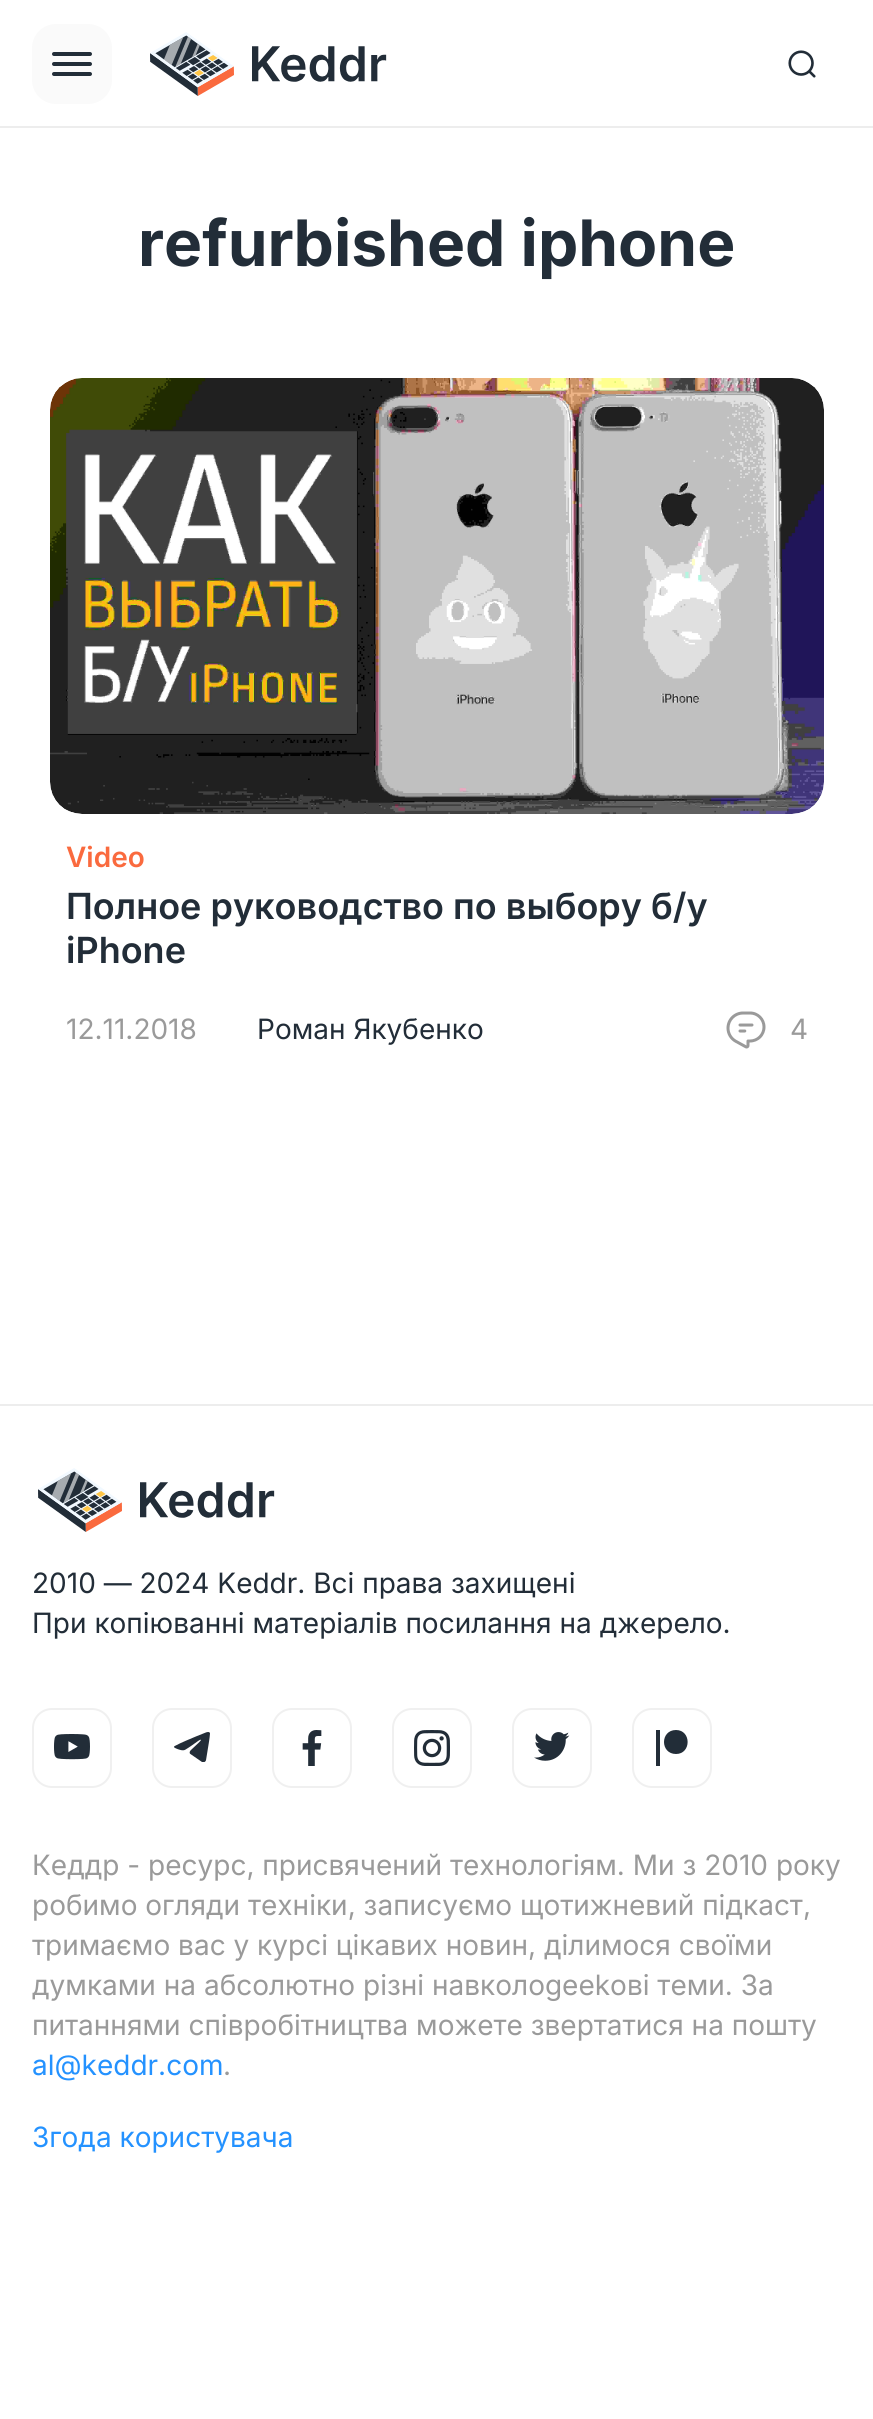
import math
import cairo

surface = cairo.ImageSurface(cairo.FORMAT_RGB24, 873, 2419)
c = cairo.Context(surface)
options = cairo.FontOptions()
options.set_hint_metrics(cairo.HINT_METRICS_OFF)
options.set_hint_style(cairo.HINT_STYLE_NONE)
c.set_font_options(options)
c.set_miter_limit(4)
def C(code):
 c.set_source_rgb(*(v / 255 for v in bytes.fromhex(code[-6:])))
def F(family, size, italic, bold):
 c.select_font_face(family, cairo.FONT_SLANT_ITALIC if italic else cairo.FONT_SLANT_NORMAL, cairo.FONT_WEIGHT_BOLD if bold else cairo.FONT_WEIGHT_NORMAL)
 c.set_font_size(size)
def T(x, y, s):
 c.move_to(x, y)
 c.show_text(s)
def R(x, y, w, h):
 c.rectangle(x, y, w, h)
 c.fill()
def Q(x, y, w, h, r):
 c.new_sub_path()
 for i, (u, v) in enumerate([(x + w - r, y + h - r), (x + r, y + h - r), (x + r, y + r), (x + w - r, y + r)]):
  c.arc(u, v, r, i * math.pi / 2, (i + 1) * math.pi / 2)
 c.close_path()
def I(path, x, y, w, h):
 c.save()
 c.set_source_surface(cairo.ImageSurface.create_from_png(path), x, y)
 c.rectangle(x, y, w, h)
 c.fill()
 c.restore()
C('ffffff')
c.paint()
C('ededed')
R(0,126,873,2)
C('fafafa')
Q(32,24,80,80,24)
c.fill()
C('222d38')
Q(52,62,40,4,2)
c.fill()
Q(52,52,40,4,2)
c.fill()
Q(52,72,40,4,2)
c.fill()
I('1.png',150,32,237,64)
I('2.png',788,50,28,28)
F('Inter',64,0,1)
T(138,266,'refurbished iphone')
I('3.png',50,378,774,436)
F('Inter SemiBold',28,0,0)
C('fa6a3e')
T(66,867,'Video')
F('Inter SemiBold',36,0,0)
C('222d38')
T(66,919,'Полное руководство по выбору б/у')
T(66,963,'iPhone')
F('Inter',28,0,0)
C('9a9a9a')
T(66,1039,'12.11.2018')
C('222d38')
T(257,1039,'Роман Якубенко')
I('4.png',726,1011,40,38)
C('9a9a9a')
T(790,1039,'4')
C('ededed')
R(0,1404,873,2)
I('5.png',38,1468,237,64)
C('222d38')
T(32,1593,'2010 — 2024 Keddr. Всі права захищені')
T(32,1633,'При копіюванні матеріалів посилання на джерело.')
Q(33,1709,78,78,19)
C('f0f0f0')
c.stroke()
I('6.png',54,1734,36,26)
Q(153,1709,78,78,19)
c.stroke()
I('7.png',174,1732,36,30)
Q(273,1709,78,78,19)
c.stroke()
I('8.png',302,1730,20,36)
Q(393,1709,78,78,19)
c.stroke()
I('9.png',414,1730,36,36)
Q(513,1709,78,78,19)
c.stroke()
I('10.png',534,1732,36,29)
Q(633,1709,78,78,19)
c.stroke()
C('222d38')
R(656,1730,4,36)
c.new_path()
c.move_to(676,1730)
c.curve_to(691.5,1730,691.5,1754,676,1754)
c.curve_to(660,1754,660,1730,676,1730)
c.close_path()
c.fill()
C('9a9a9a')
T(32,1875,'Кеддр - ресурс, присвячений технологіям. Ми з 2010 року')
T(32,1915,'робимо огляди техніки, записуємо щотижневий підкаст,')
T(32,1955,'тримаємо вас у курсі цікавих новин, ділимося своїми')
T(32,1995,'думками на абсолютно різні навколоgeekові теми. За')
T(32,2035,'питаннями співробітництва можете звертатися на пошту')
C('2492ff')
T(32,2075,'al@keddr.com')
C('9a9a9a')
T(223,2075,'.')
C('2492ff')
T(32,2147,'Згода користувача')
surface.write_to_png('o.png')
